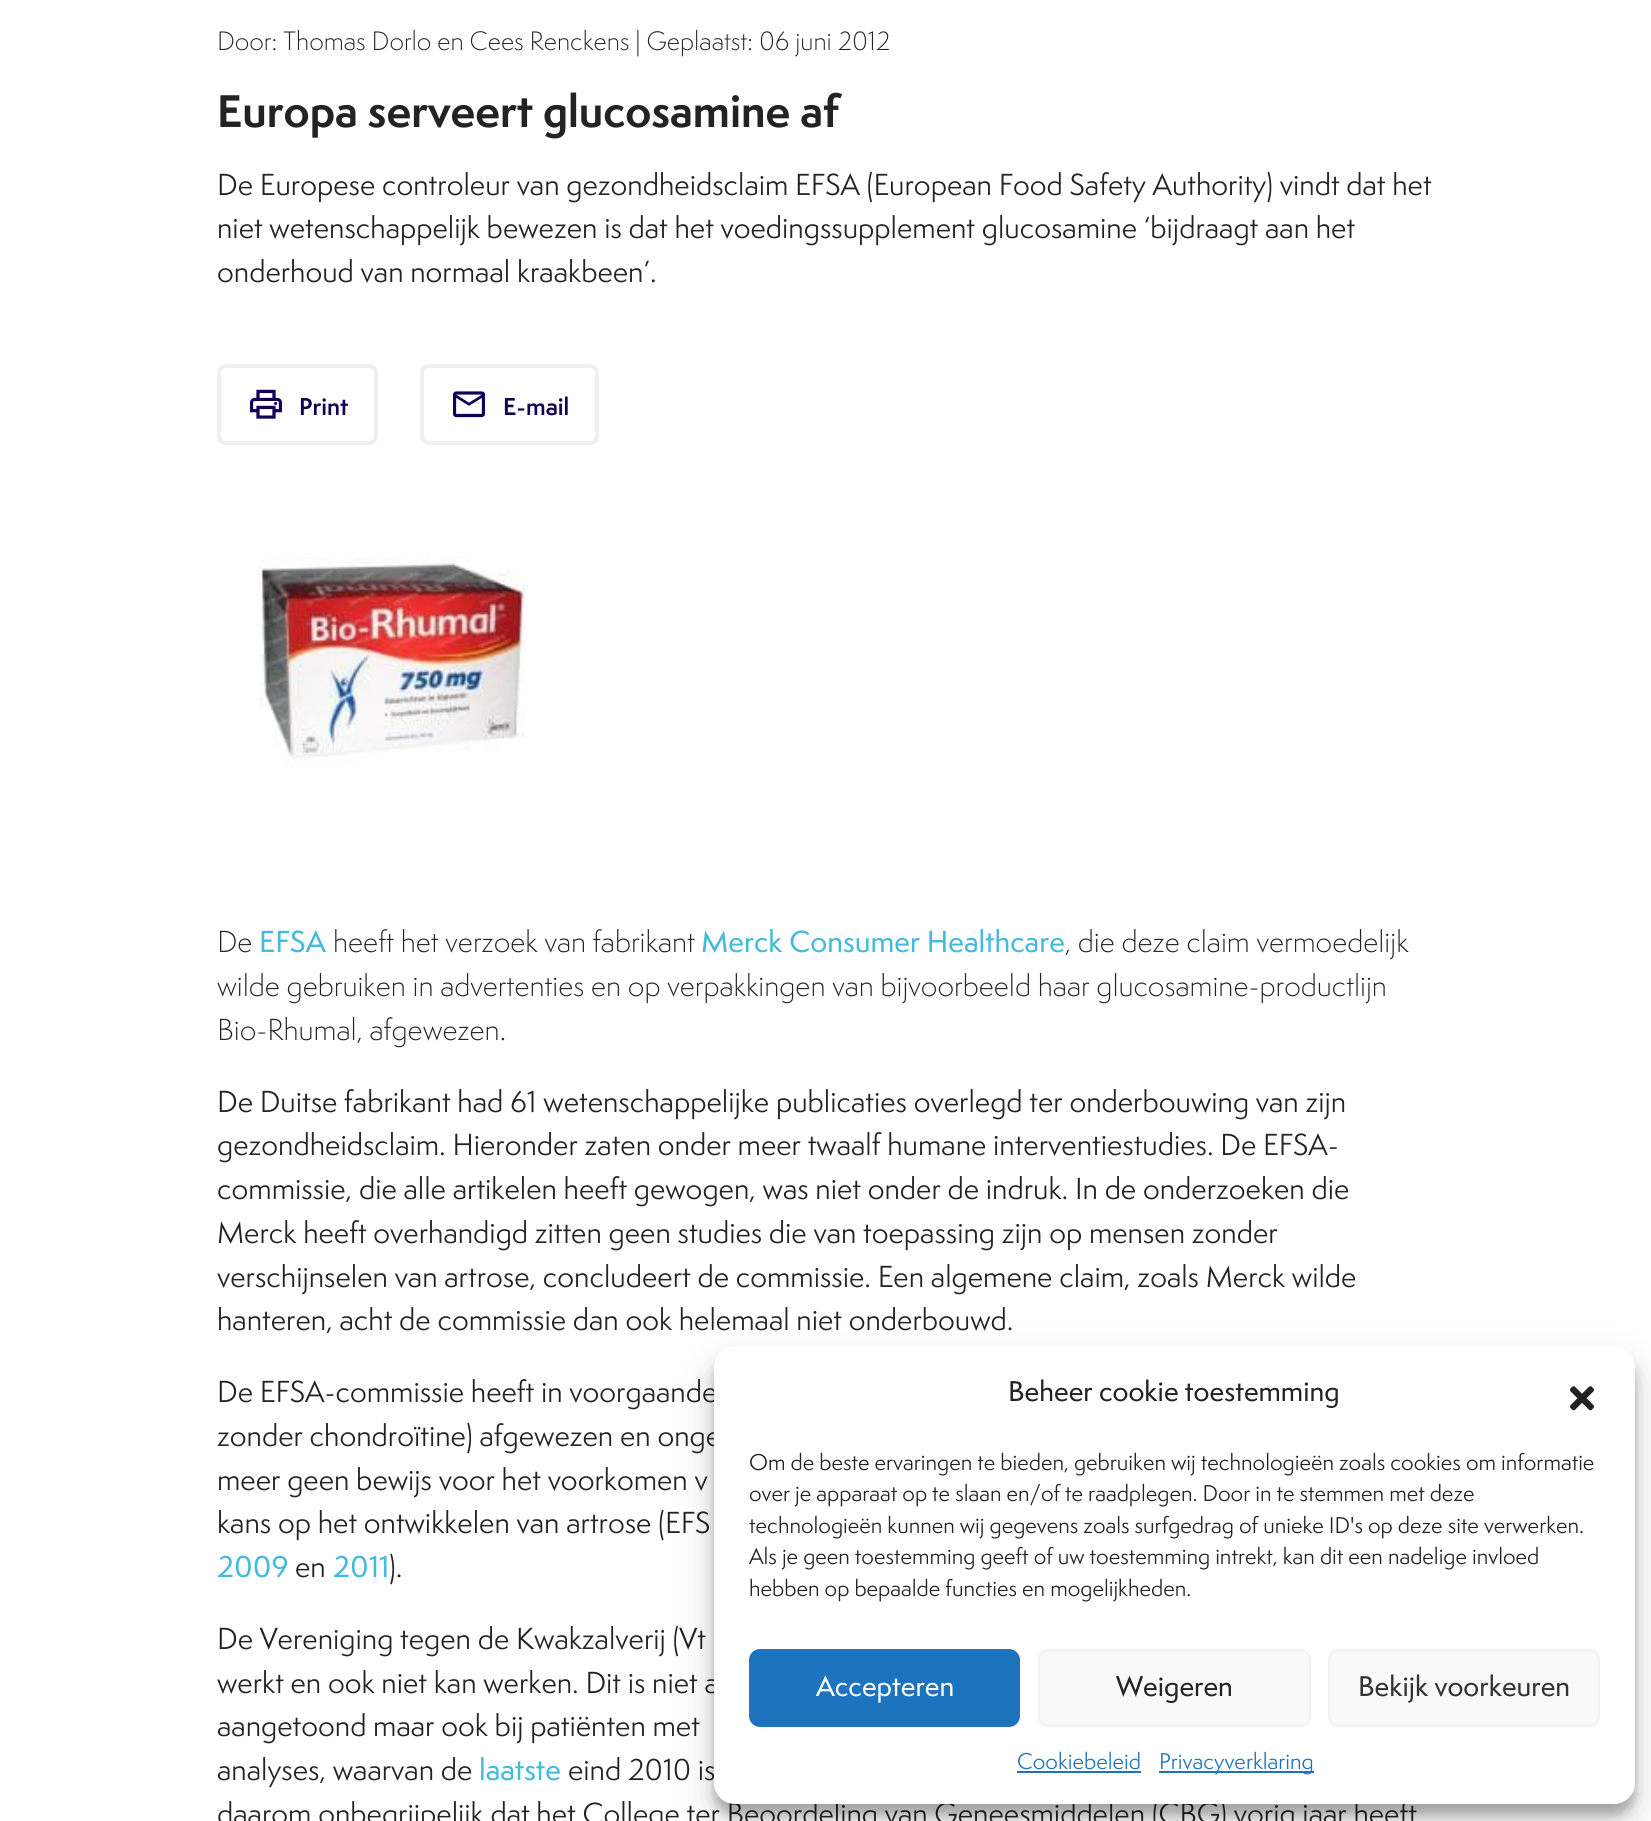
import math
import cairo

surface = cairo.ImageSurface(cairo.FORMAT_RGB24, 1651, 1821)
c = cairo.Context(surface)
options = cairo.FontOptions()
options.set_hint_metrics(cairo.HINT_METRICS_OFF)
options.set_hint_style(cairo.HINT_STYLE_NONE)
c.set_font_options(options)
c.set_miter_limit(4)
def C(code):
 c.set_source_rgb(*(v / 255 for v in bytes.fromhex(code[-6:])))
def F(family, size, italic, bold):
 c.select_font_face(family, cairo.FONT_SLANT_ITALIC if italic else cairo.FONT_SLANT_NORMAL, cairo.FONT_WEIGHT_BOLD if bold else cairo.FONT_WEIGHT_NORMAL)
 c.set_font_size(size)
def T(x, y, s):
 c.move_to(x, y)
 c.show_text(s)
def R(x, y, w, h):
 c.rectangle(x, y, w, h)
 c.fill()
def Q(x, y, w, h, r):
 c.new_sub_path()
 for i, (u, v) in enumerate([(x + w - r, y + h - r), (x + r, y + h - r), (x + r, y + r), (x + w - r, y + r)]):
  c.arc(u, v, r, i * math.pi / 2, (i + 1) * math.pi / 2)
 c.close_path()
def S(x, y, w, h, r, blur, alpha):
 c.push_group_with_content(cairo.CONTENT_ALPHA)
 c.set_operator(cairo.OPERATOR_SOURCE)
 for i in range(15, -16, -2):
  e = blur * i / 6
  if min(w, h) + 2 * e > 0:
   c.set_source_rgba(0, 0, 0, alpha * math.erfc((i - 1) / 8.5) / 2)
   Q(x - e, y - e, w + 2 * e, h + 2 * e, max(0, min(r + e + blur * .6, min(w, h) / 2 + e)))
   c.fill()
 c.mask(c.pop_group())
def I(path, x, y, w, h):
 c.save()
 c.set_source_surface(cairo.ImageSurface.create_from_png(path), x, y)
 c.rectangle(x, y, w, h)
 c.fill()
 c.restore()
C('ffffff')
c.paint()
F('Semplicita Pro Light',24.5,0,0)
C('232323')
T(217,50,'Door: Thomas Dorlo en Cees Renckens | Geplaatst: 06 juni 2012')
F('Semplicita Pro',42,0,1)
T(217,127,'Europa serveert glucosamine af')
F('Semplicita Pro',28,0,0)
T(217,195,'De Europese controleur van gezondheidsclaim EFSA (European Food Safety Authority) vindt dat het')
T(217,238,'niet wetenschappelijk bewezen is dat het voedingssupplement glucosamine ‘bijdraagt aan het')
T(217,282,'onderhoud van normaal kraakbeen’.')
Q(219,366,157,77,7)
C('efefef')
c.set_line_width(4)
c.stroke()
I('1.png',250,389,32,30)
F('Semplicita Pro SemiBold',22.5,0,0)
C('130056')
T(299,415,'Print')
Q(422,366,175,77,7)
C('efefef')
c.stroke()
I('2.png',453,391,32,27)
C('130056')
T(503,415,'E-mail')
I('3.png',259,557,267,209)
F('Semplicita Pro Light',28,0,0)
C('232323')
T(217,952,'De')
F('Semplicita Pro Medium',28,0,0)
C('45badf')
T(259,952,'EFSA')
F('Semplicita Pro Light',28,0,0)
C('232323')
T(333,952,'heeft het verzoek van fabrikant')
F('Semplicita Pro Medium',28,0,0)
C('45badf')
T(701,952,'Merck Consumer Healthcare')
F('Semplicita Pro Light',28,0,0)
C('232323')
T(1065,952,', die deze claim vermoedelijk')
T(217,996,'wilde gebruiken in advertenties en op verpakkingen van bijvoorbeeld haar glucosamine-productlijn')
T(217,1040,'Bio-Rhumal, afgewezen.')
F('Semplicita Pro',28,0,0)
T(217,1112,'De Duitse fabrikant had 61 wetenschappelijke publicaties overlegd ter onderbouwing van zijn')
T(217,1155,'gezondheidsclaim. Hieronder zaten onder meer twaalf humane interventiestudies. De EFSA-')
T(217,1199,'commissie, die alle artikelen heeft gewogen, was niet onder de indruk. In de onderzoeken die')
T(217,1243,'Merck heeft overhandigd zitten geen studies die van toepassing zijn op mensen zonder')
T(217,1287,'verschijnselen van artrose, concludeert de commissie. Een algemene claim, zoals Merck wilde')
T(217,1330,'hanteren, acht de commissie dan ook helemaal niet onderbouwd.')
T(217,1402,'De EFSA-commissie heeft in voorgaande')
T(217,1446,'zonder chondroïtine) afgewezen en onge')
T(217,1490,'meer geen bewijs voor het voorkomen v')
T(217,1533,'kans op het ontwikkelen van artrose (EFS')
F('Semplicita Pro Medium',28,0,0)
C('45badf')
T(217,1577,'2009')
F('Semplicita Pro',28,0,0)
C('232323')
T(295,1577,'en')
F('Semplicita Pro Medium',28,0,0)
C('45badf')
T(333,1577,'2011')
F('Semplicita Pro',28,0,0)
C('232323')
T(389,1577,').')
T(217,1649,'De Vereniging tegen de Kwakzalverij (Vt')
T(217,1693,'werkt en ook niet kan werken. Dit is niet a')
T(217,1736,'aangetoond maar ook bij patiënten met')
T(217,1780,'analyses, waarvan de')
F('Semplicita Pro Medium',28,0,0)
C('45badf')
T(479,1780,'laatste')
F('Semplicita Pro',28,0,0)
C('232323')
T(568,1780,'eind 2010 is')
T(217,1824,'daarom onbegrijpelijk dat het College ter Beoordeling van Geneesmiddelen (CBG) vorig jaar heeft')
C('000000')
S(714,1356,921,459,21,5,.23)
S(714,1363,921,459,21,17.5,.19)
C('ffffff')
Q(714,1346,921,458,21)
c.fill()
F('Semplicita Pro Medium',26.25,0,0)
C('232323')
T(1008,1401,'Beheer cookie toestemming')
I('4.png',1570,1386,24,25)
F('Semplicita Pro',21,0,0)
T(749,1470,'Om de beste ervaringen te bieden, gebruiken wij technologieën zoals cookies om informatie')
T(749,1501,'over je apparaat op te slaan en/of te raadplegen. Door in te stemmen met deze')
T(749,1533,'technologieën kunnen wij gegevens zoals surfgedrag of unieke ID\'s op deze site verwerken.')
T(749,1564,'Als je geen toestemming geeft of uw toestemming intrekt, kan dit een nadelige invloed')
T(749,1596,'hebben op bepaalde functies en mogelijkheden.')
C('1e73be')
Q(750,1650,269,76,10)
c.fill_preserve()
c.set_line_width(2)
c.stroke()
F('Semplicita Pro Medium',26.25,0,0)
C('ffffff')
T(816,1696,'Accepteren')
C('f9f9f9')
Q(1039,1650,271,76,10)
c.fill_preserve()
C('f2f2f2')
c.stroke()
C('232323')
T(1116,1696,'Weigeren')
C('f9f9f9')
Q(1329,1650,270,76,10)
c.fill_preserve()
C('f2f2f2')
c.stroke()
C('333333')
T(1358,1696,'Bekijk voorkeuren')
F('Semplicita Pro',21,0,0)
C('1e73be')
T(1017,1769,'Cookiebeleid')
R(1017,1771,124,2)
R(1159,1771,155,2)
T(1159,1769,'Privacyverklaring')
surface.write_to_png('o.png')
